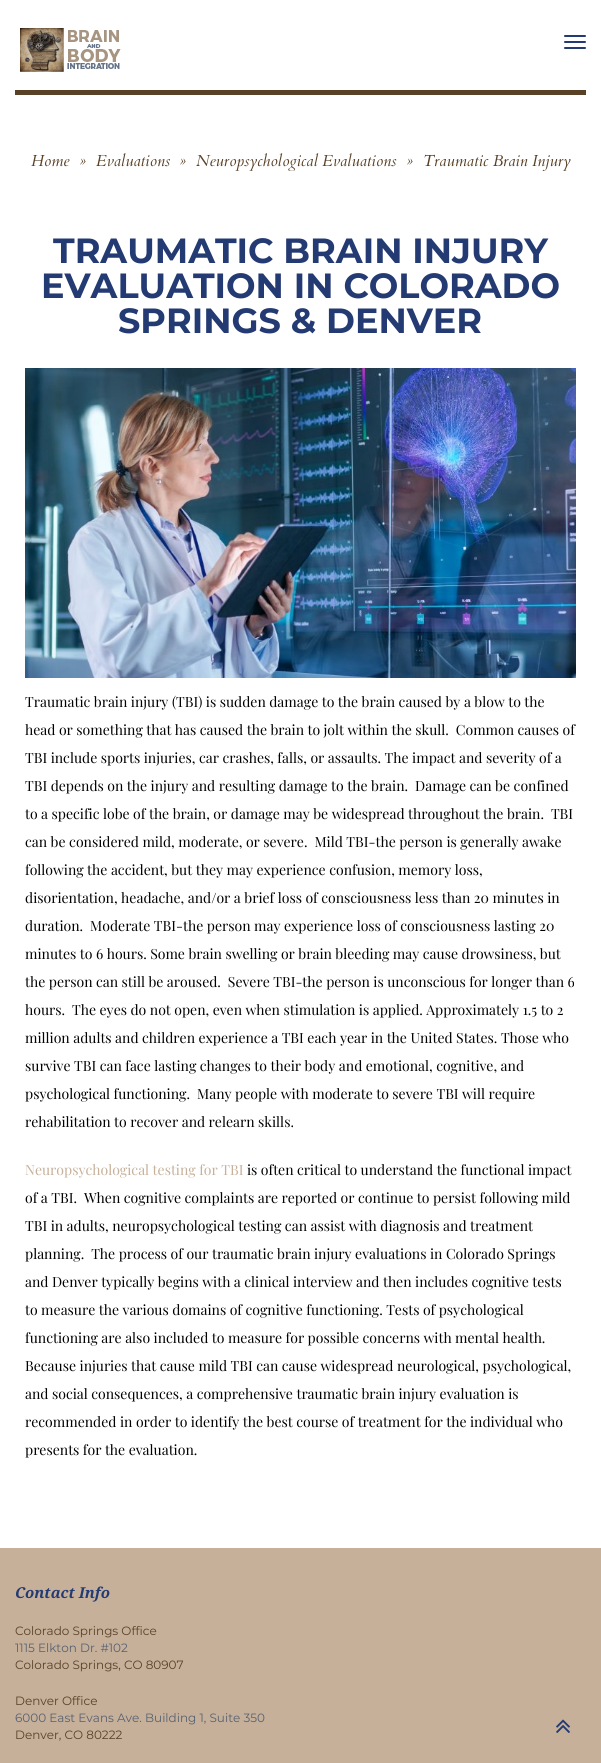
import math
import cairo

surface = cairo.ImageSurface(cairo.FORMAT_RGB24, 601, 1763)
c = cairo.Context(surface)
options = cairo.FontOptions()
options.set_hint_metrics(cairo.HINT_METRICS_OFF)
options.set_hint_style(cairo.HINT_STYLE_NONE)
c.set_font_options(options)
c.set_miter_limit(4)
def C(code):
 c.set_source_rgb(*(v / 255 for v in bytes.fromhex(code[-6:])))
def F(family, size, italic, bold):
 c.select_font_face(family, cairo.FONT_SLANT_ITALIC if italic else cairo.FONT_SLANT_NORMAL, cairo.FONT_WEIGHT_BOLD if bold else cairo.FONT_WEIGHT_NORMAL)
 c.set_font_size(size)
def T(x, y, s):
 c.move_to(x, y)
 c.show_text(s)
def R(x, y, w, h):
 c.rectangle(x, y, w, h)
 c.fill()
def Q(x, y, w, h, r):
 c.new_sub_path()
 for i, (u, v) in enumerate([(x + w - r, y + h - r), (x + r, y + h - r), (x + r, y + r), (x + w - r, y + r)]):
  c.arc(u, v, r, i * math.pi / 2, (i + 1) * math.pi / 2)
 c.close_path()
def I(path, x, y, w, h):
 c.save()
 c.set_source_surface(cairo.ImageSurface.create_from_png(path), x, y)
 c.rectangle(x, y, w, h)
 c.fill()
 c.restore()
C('ffffff')
c.paint()
I('1.png',20,28,101,44)
C('233a73')
Q(564,35,22,2,1)
c.fill()
Q(564,41,22,2,1)
c.fill()
Q(564,47,22,2,1)
c.fill()
C('594127')
R(15,90,571,5)
F('Cardo',16,1,0)
T(31,166,'Home')
T(79,166,'»')
T(96,166,'Evaluations')
T(179,166,'»')
T(196,166,'Neuropsychological Evaluations')
T(406,166,'»')
T(423,166,'Traumatic Brain Injury')
F('Montserrat',35,0,1)
C('233a73')
T(53,263,'TRAUMATIC BRAIN INJURY')
T(41,298,'EVALUATION IN COLORADO')
T(118,333,'SPRINGS & DENVER')
I('2.png',25,368,551,310)
F('Playfair Display',14,0,0)
C('000000')
T(25,707,'Traumatic brain injury (TBI) is sudden damage to the brain caused by a blow to the')
T(25,735,'head or something that has caused the brain to jolt within the skull.  Common causes of')
T(25,763,'TBI include sports injuries, car crashes, falls, or assaults. The impact and severity of a')
T(25,791,'TBI depends on the injury and resulting damage to the brain.  Damage can be confined')
T(25,819,'to a specific lobe of the brain, or damage may be widespread throughout the brain.  TBI')
T(25,847,'can be considered mild, moderate, or severe.  Mild TBI-the person is generally awake')
T(25,875,'following the accident, but they may experience confusion, memory loss,')
T(25,903,'disorientation, headache, and/or a brief loss of consciousness less than 20 minutes in')
T(25,931,'duration.  Moderate TBI-the person may experience loss of consciousness lasting 20')
T(25,959,'minutes to 6 hours. Some brain swelling or brain bleeding may cause drowsiness, but')
T(25,987,'the person can still be aroused.  Severe TBI-the person is unconscious for longer than 6')
T(25,1015,'hours.  The eyes do not open, even when stimulation is applied. Approximately 1.5 to 2')
T(25,1043,'million adults and children experience a TBI each year in the United States. Those who')
T(25,1071,'survive TBI can face lasting changes to their body and emotional, cognitive, and')
T(25,1099,'psychological functioning.  Many people with moderate to severe TBI will require')
T(25,1127,'rehabilitation to recover and relearn skills.')
C('c6b099')
T(25,1175,'Neuropsychological testing for TBI')
C('000000')
T(247,1175,'is often critical to understand the functional impact')
T(25,1203,'of a TBI.  When cognitive complaints are reported or continue to persist following mild')
T(25,1231,'TBI in adults, neuropsychological testing can assist with diagnosis and treatment')
T(25,1259,'planning.  The process of our traumatic brain injury evaluations in Colorado Springs')
T(25,1287,'and Denver typically begins with a clinical interview and then includes cognitive tests')
T(25,1315,'to measure the various domains of cognitive functioning. Tests of psychological')
T(25,1343,'functioning are also included to measure for possible concerns with mental health.')
T(25,1371,'Because injuries that cause mild TBI can cause widespread neurological, psychological,')
T(25,1399,'and social consequences, a comprehensive traumatic brain injury evaluation is')
T(25,1427,'recommended in order to identify the best course of treatment for the individual who')
T(25,1455,'presents for the evaluation.')
C('c6b099')
R(0,1548,601,215)
F('Droid Serif',15,1,1)
C('233a73')
T(15,1598,'Contact Info')
F('Montserrat',12,0,0)
C('594127')
T(15,1635,'Colorado Springs Office')
C('566172')
T(15,1652,'1115 Elkton Dr. #102')
C('594127')
T(15,1669,'Colorado Springs, CO 80907')
T(15,1705,'Denver Office')
C('566172')
T(15,1722,'6000 East Evans Ave. Building 1, Suite 350')
C('594127')
T(15,1739,'Denver, CO 80222')
I('3.png',556,1719,14,14)
surface.write_to_png('o.png')
